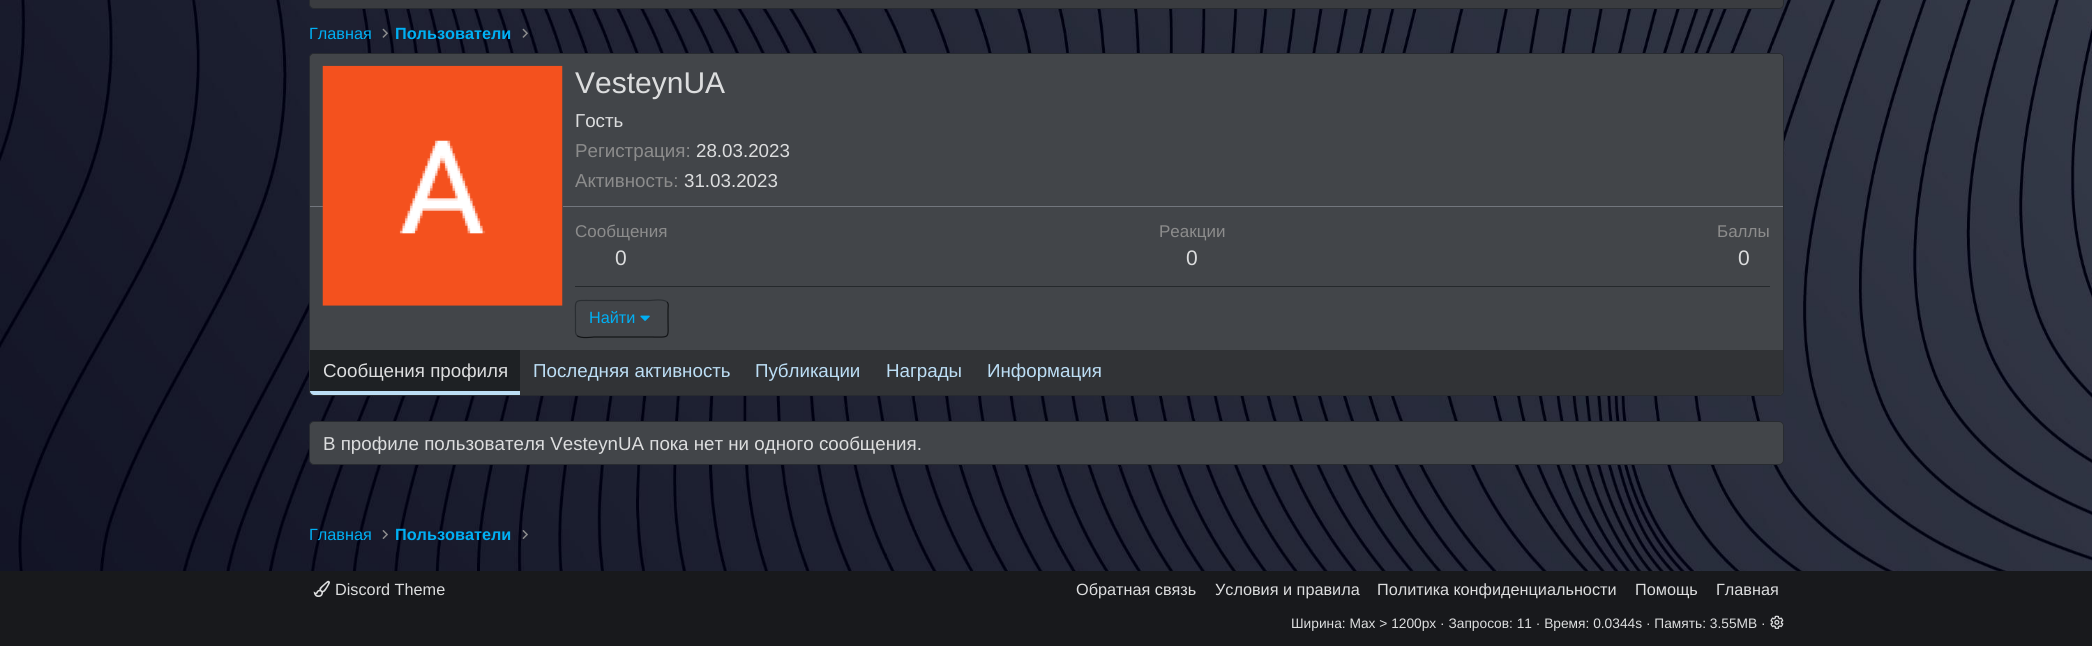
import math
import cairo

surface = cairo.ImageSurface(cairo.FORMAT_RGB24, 2092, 646)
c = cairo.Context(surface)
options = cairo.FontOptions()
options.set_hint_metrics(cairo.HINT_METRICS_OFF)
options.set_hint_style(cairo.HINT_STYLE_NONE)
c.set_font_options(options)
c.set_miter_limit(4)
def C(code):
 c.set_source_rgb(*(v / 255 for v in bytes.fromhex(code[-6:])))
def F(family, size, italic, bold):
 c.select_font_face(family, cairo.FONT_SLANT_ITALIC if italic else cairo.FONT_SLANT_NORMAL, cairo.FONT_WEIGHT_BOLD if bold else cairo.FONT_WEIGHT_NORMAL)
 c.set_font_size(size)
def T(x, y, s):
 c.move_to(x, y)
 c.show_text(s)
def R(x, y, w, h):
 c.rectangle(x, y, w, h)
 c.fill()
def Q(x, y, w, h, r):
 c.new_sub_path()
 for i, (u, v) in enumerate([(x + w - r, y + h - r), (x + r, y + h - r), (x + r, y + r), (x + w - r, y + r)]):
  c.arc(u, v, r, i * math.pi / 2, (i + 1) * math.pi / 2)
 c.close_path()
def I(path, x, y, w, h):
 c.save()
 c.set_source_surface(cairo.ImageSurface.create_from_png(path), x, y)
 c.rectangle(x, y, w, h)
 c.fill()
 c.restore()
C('ffffff')
c.paint()
I('1.png',0,0,2092,571)
C('3a3c40')
Q(309.5,-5.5,1474,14,4.5)
c.fill_preserve()
C('282b30')
c.set_line_width(1)
c.stroke()
F('Liberation Sans',16.25,0,0)
C('00b0f4')
T(309,39,'Главная')
I('2.png',382,28,6,10)
F('Liberation Sans',16.25,0,1)
T(395,39,'Пользователи')
I('3.png',522,28,6,10)
C('424549')
Q(309.5,53.5,1474,342,4.5)
c.fill_preserve()
C('282b30')
c.stroke()
C('424549')
c.new_path()
c.move_to(314,54)
c.line_to(1779,54)
c.curve_to(1781,54,1783,56,1783,58)
c.line_to(1783,208)
c.line_to(310,208)
c.line_to(310,58)
c.curve_to(310,56,312,54,314,54)
c.close_path()
c.fill()
C('72767d')
R(310,206,1473,1)
C('424549')
R(323,206,240,1)
I('4.png',322,65,241,241)
F('Liberation Sans',30,0,0)
C('dcddde')
T(575,93,'VesteynUA')
F('Liberation Sans',18.75,0,0)
T(575,127,'Гость')
C('8c8c8c')
T(575,157,'Регистрация:')
C('dcddde')
T(696,157,'28.03.2023')
C('8c8c8c')
T(575,187,'Активность:')
C('dcddde')
T(684,187,'31.03.2023')
F('Liberation Sans',17,0,0)
C('8c8c8c')
T(575,237,'Сообщения')
F('Liberation Sans',21,0,0)
C('dcddde')
T(615,265,'0')
F('Liberation Sans',17,0,0)
C('8c8c8c')
T(1159,237,'Реакции')
F('Liberation Sans',21,0,0)
C('dcddde')
T(1186,265,'0')
F('Liberation Sans',17,0,0)
C('8c8c8c')
T(1717,237,'Баллы')
F('Liberation Sans',21,0,0)
C('dcddde')
T(1738,265,'0')
C('25292c')
R(575,286,1195,1)
c.new_path()
c.move_to(667,302)
c.curve_to(669,304,668,307,668,309.5)
c.line_to(668,319)
c.curve_to(668,339.5,671,337,650,337)
c.line_to(594,337)
c.curve_to(593,337,580.5,339,577,335.5)
C('121416')
c.set_line_width(1.2)
c.stroke()
c.new_path()
c.move_to(577,335.5)
c.curve_to(575,333.5,575.5,330.5,575.5,328)
c.line_to(575.5,319)
c.curve_to(575.5,298,572.5,300.5,594,300.5)
c.line_to(650,300.5)
c.curve_to(650.5,300.5,663.5,298.5,667,302)
C('2a2e32')
c.stroke()
F('Liberation Sans',16.25,0,0)
C('00b0f4')
T(589,323,'Найти')
I('5.png',640,315,10,6)
C('313336')
c.new_path()
c.move_to(310,350)
c.line_to(1783,350)
c.line_to(1783,391)
c.curve_to(1783,393,1781,395,1779,395)
c.line_to(314,395)
c.curve_to(312,395,310,393,310,391)
c.close_path()
c.fill()
C('1e2124')
c.new_path()
c.move_to(310,350)
c.line_to(520,350)
c.line_to(520,395)
c.line_to(314,395)
c.curve_to(312,395,310,393,310,391)
c.close_path()
c.fill()
C('bcdef5')
c.new_path()
c.move_to(310,391)
c.line_to(520,391)
c.line_to(520,395)
c.line_to(314,395)
c.curve_to(312,395,310,393,310,391)
c.close_path()
c.fill()
F('Liberation Sans',18.75,0,0)
C('dcddde')
T(323,377,'Сообщения профиля')
C('bcdef5')
T(533,377,'Последняя активность')
T(755,377,'Публикации')
T(886,377,'Награды')
T(987,377,'Информация')
C('424549')
Q(309.5,421.5,1474,43,4.5)
c.fill_preserve()
C('282b30')
c.set_line_width(1)
c.stroke()
C('dcddde')
T(323,450,'В профиле пользователя VesteynUA пока нет ни одного сообщения.')
F('Liberation Sans',16.25,0,0)
C('00b0f4')
T(309,540,'Главная')
I('6.png',382,530,6,9)
F('Liberation Sans',16.25,0,1)
T(395,540,'Пользователи')
I('7.png',522,530,6,9)
C('18191c')
R(0,571,2092,75)
I('8.png',313,580,17,17)
F('Liberation Sans',16.25,0,0)
C('dcddde')
T(335,595,'Discord Theme')
T(1076,595,'Обратная связь')
T(1215,595,'Условия и правила')
T(1377,595,'Политика конфиденциальности')
T(1635,595,'Помощь')
T(1716,595,'Главная')
F('Liberation Sans',13.75,0,0)
T(1291,628,'Ширина: Max > 1200px · Запросов: 11 · Время: 0.0344s · Память: 3.55MB ·')
I('9.png',1770,615,14,14)
surface.write_to_png('o.png')
